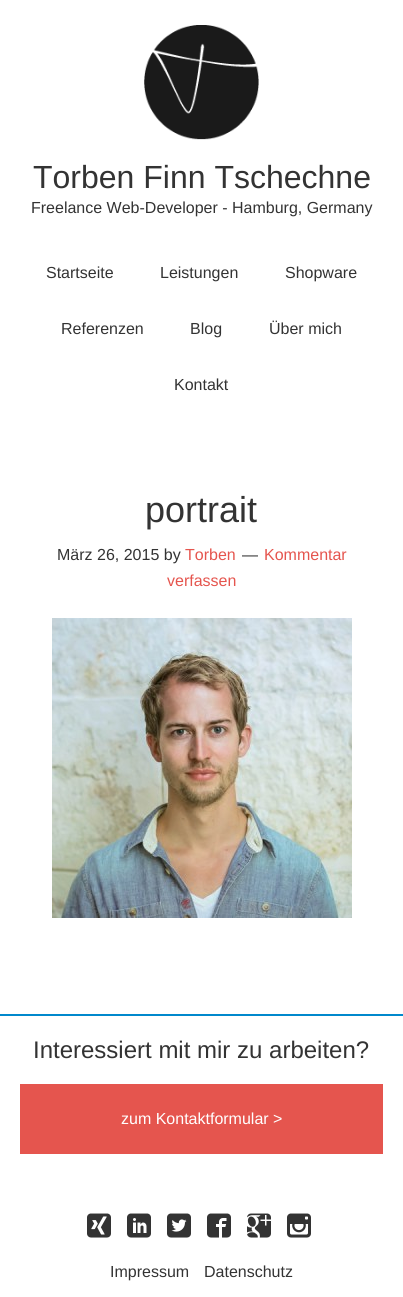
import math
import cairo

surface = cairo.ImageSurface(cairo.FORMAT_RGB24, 403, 1297)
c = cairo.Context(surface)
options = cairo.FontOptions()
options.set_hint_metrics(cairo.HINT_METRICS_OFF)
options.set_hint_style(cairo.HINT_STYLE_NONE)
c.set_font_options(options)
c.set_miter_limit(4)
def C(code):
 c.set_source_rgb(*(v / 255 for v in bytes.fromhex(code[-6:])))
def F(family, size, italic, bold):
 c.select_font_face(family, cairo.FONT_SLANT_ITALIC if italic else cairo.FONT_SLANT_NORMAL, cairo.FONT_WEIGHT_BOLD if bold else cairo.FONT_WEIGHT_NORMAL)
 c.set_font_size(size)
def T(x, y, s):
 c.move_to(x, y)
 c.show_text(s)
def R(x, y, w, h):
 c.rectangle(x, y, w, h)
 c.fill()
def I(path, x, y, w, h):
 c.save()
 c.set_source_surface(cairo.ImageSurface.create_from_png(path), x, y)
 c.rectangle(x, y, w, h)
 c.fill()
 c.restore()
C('ffffff')
c.paint()
I('1.png',144,25,115,115)
F('Liberation Sans',32,0,0)
C('333333')
T(33,188,'Torben Finn Tschechne')
F('Liberation Sans',16,0,0)
T(31,213,'Freelance Web-Developer - Hamburg, Germany')
T(46,278,'Startseite')
T(160,278,'Leistungen')
T(285,278,'Shopware')
T(61,334,'Referenzen')
T(190,334,'Blog')
T(269,334,'Über mich')
T(174,390,'Kontakt')
F('Liberation Sans',36,0,0)
T(145,522,'portrait')
F('Liberation Sans',16,0,0)
T(57,560,'März 26, 2015 by')
C('e5554e')
T(185,560,'Torben')
C('333333')
T(242,560,'—')
C('e5554e')
T(264,560,'Kommentar')
T(167,586,'verfassen')
I('2.png',52,618,300,300)
C('0088cc')
R(0,1014,403,2)
F('Liberation Sans',24,0,0)
C('333333')
T(33,1058,'Interessiert mit mir zu arbeiten?')
C('e5554e')
R(20,1084,363,70)
F('Liberation Sans',16,0,0)
C('ffffff')
T(121,1124,'zum Kontaktformular >')
I('3.png',87,1213,24,25)
I('4.png',127,1213,24,25)
I('5.png',167,1213,24,25)
I('6.png',207,1213,24,25)
I('7.png',247,1213,24,25)
I('8.png',287,1213,24,25)
C('333333')
T(110,1277,'Impressum')
T(204,1277,'Datenschutz')
surface.write_to_png('o.png')
